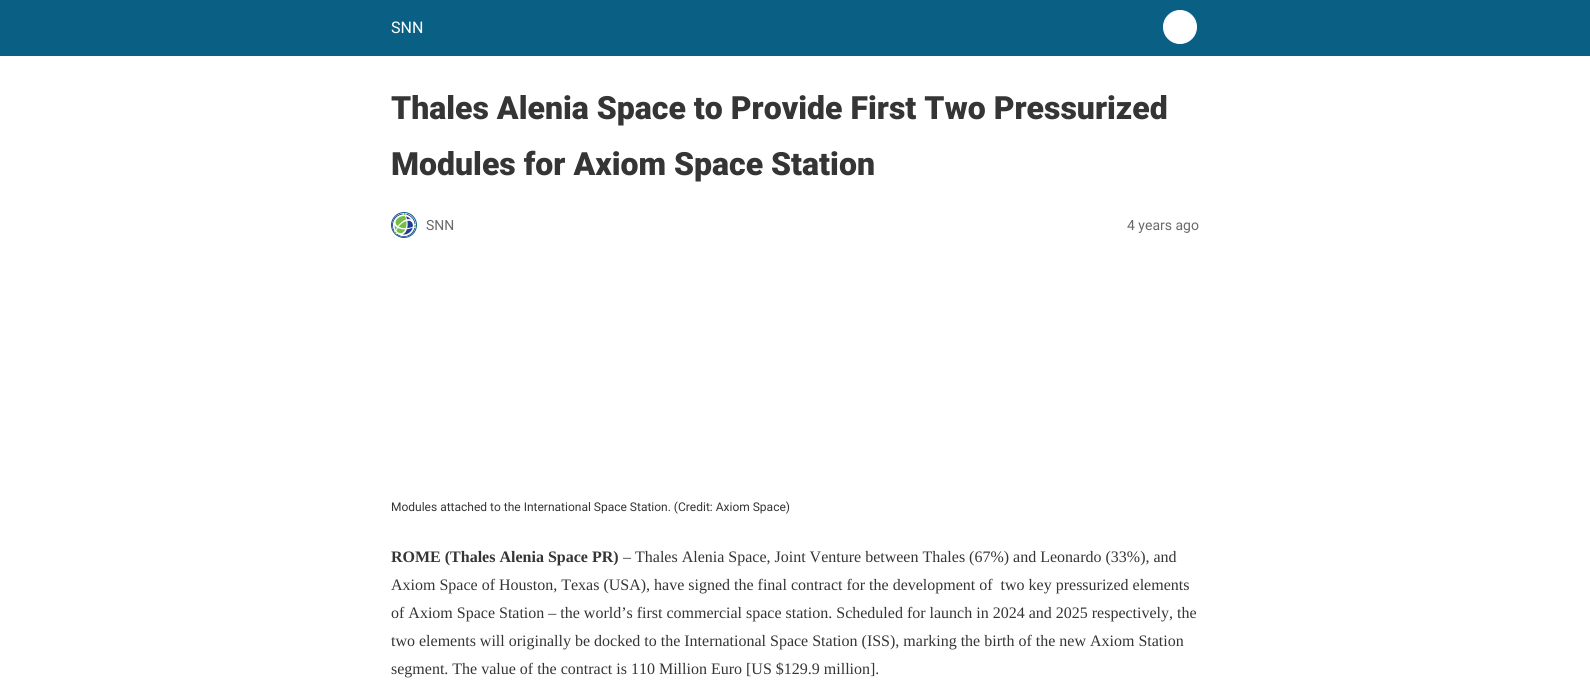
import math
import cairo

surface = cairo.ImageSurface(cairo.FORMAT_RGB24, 1590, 682)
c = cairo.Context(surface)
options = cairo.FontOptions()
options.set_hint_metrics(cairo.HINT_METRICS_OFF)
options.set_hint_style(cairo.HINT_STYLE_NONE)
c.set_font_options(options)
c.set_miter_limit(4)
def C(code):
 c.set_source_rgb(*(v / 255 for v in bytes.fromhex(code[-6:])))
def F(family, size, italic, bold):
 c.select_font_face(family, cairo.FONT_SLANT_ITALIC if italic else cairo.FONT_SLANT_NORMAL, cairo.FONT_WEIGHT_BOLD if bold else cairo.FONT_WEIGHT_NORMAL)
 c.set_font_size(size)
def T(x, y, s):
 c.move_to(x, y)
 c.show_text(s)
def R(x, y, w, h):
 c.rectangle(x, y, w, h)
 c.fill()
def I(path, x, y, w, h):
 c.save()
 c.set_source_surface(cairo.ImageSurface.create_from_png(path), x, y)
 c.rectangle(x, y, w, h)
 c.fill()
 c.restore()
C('ffffff')
c.paint()
C('0a5f85')
R(0,0,1590,56)
F('Roboto',16,0,0)
C('ffffff')
T(391,33,'SNN')
c.new_path()
c.arc(1180,27,16.5,0,2 * math.pi)
c.fill_preserve()
c.set_line_width(1)
c.stroke()
F('Roboto Black',32,0,0)
C('353535')
T(391,119,'Thales Alenia Space to Provide First Two Pressurized')
T(391,175,'Modules for Axiom Space Station')
c.new_path()
c.arc(404,225,12.5,0,2 * math.pi)
C('0a5f85')
c.stroke()
I('1.png',392,213,24,24)
F('Roboto',14,0,0)
C('696969')
T(426,230,'SNN')
T(1127,230,'4 years ago')
F('Roboto',12,0,0)
C('353535')
T(391,511,'Modules attached to the International Space Station. (Credit: Axiom Space)')
F('Liberation Serif',16,0,1)
T(391,562,'ROME (Thales Alenia Space PR)')
F('Liberation Serif',16,0,0)
T(623,562,'– Thales Alenia Space, Joint Venture between Thales (67%) and Leonardo (33%), and')
T(391,590,'Axiom Space of Houston, Texas (USA), have signed the final contract for the development of  two key pressurized elements')
T(391,618,'of Axiom Space Station – the world’s first commercial space station. Scheduled for launch in 2024 and 2025 respectively, the')
T(391,646,'two elements will originally be docked to the International Space Station (ISS), marking the birth of the new Axiom Station')
T(391,674,'segment. The value of the contract is 110 Million Euro [US $129.9 million].')
surface.write_to_png('o.png')
